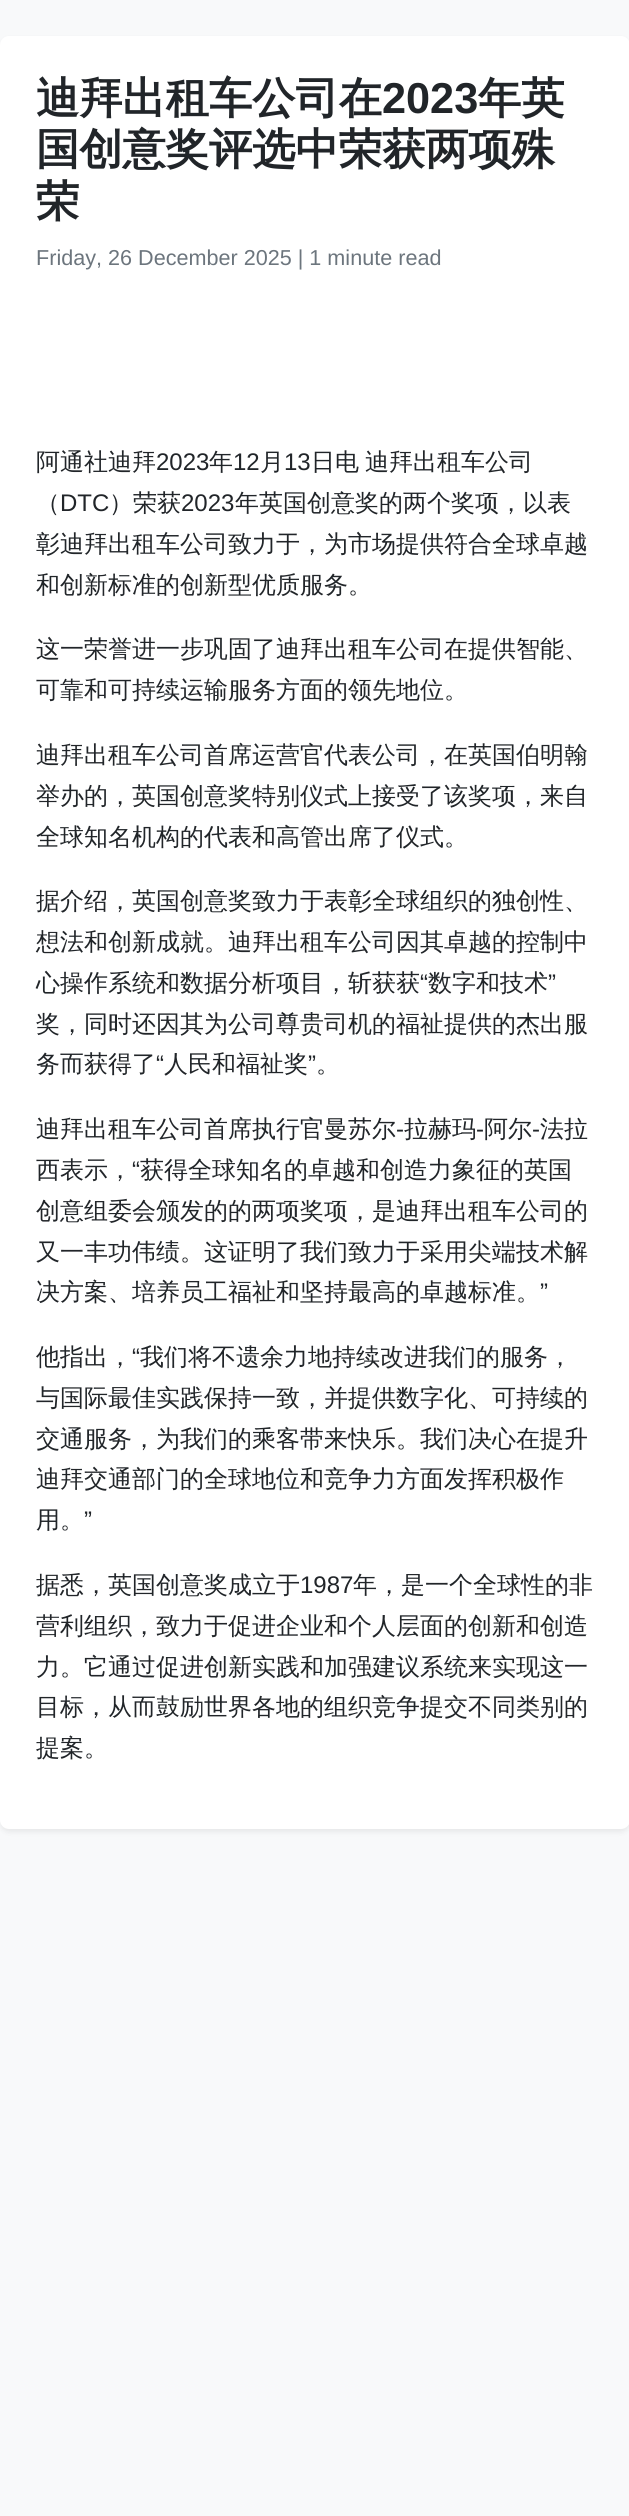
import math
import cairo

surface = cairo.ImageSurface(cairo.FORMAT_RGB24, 629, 2516)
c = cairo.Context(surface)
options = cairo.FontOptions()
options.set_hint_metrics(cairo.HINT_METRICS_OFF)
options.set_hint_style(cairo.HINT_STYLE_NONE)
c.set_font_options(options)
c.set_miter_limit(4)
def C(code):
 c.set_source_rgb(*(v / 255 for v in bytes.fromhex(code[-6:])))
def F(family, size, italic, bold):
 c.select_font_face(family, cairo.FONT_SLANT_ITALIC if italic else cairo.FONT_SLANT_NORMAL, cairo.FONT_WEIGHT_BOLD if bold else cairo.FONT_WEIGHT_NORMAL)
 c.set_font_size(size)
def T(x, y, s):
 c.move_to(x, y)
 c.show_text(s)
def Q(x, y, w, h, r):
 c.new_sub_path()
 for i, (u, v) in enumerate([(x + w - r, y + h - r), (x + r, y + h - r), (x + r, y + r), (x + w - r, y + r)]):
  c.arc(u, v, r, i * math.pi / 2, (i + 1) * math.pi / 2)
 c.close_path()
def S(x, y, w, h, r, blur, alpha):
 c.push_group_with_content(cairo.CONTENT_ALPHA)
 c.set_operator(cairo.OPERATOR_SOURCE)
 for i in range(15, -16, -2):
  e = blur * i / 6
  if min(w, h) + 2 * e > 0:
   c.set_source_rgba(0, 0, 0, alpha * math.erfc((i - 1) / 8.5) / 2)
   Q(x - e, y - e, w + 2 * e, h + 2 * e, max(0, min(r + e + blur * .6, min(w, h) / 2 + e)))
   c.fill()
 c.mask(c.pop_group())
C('f8f9fa')
c.paint()
C('000000')
S(0,39,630,1793,9,3,.07)
C('ffffff')
Q(0,36,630,1793,9)
c.fill()
F('WenQuanYi Zen Hei',43.25,0,1)
C('212529')
T(36,113,'迪拜出租车公司在')
F('Liberation Sans',43.25,0,1)
T(382,113,'2023')
F('WenQuanYi Zen Hei',43.25,0,1)
T(478,113,'年英')
T(36,164,'国创意奖评选中荣获两项殊')
T(36,216,'荣')
F('Liberation Sans',21.6,0,0)
C('6c757d')
T(36,265,'Friday, 26 December 2025 | 1 minute read')
F('WenQuanYi Zen Hei Medium',24,0,0)
C('212529')
T(36,470,'阿通社迪拜')
F('Liberation Sans',24,0,0)
T(156,470,'2023')
F('WenQuanYi Zen Hei Medium',24,0,0)
T(209,470,'年')
F('Liberation Sans',24,0,0)
T(233,470,'12')
F('WenQuanYi Zen Hei Medium',24,0,0)
T(260,470,'月')
F('Liberation Sans',24,0,0)
T(284,470,'13')
F('WenQuanYi Zen Hei Medium',24,0,0)
T(311,470,'日电')
T(365,470,'迪拜出租车公司')
T(36,511,'（')
F('Liberation Sans',24,0,0)
T(60,511,'DTC')
F('WenQuanYi Zen Hei Medium',24,0,0)
T(109,511,'）荣获')
F('Liberation Sans',24,0,0)
T(181,511,'2023')
F('WenQuanYi Zen Hei Medium',24,0,0)
T(235,511,'年英国创意奖的两个奖项，以表')
T(36,552,'彰迪拜出租车公司致力于，为市场提供符合全球卓越')
T(36,593,'和创新标准的创新型优质服务。')
T(36,657,'这一荣誉进一步巩固了迪拜出租车公司在提供智能、')
T(36,698,'可靠和可持续运输服务方面的领先地位。')
T(36,763,'迪拜出租车公司首席运营官代表公司，在英国伯明翰')
T(36,804,'举办的，英国创意奖特别仪式上接受了该奖项，来自')
T(36,845,'全球知名机构的代表和高管出席了仪式。')
T(36,909,'据介绍，英国创意奖致力于表彰全球组织的独创性、')
T(36,950,'想法和创新成就。迪拜出租车公司因其卓越的控制中')
T(36,991,'心操作系统和数据分析项目，斩获获')
F('Liberation Sans',24,0,0)
T(420,991,'“')
F('WenQuanYi Zen Hei Medium',24,0,0)
T(428,991,'数字和技术')
F('Liberation Sans',24,0,0)
T(548,991,'”')
F('WenQuanYi Zen Hei Medium',24,0,0)
T(36,1032,'奖，同时还因其为公司尊贵司机的福祉提供的杰出服')
T(36,1072,'务而获得了')
F('Liberation Sans',24,0,0)
T(156,1072,'“')
F('WenQuanYi Zen Hei Medium',24,0,0)
T(164,1072,'人民和福祉奖')
F('Liberation Sans',24,0,0)
T(308,1072,'”')
F('WenQuanYi Zen Hei Medium',24,0,0)
T(316,1072,'。')
T(36,1137,'迪拜出租车公司首席执行官曼苏尔')
F('Liberation Sans',24,0,0)
T(396,1137,'-')
F('WenQuanYi Zen Hei Medium',24,0,0)
T(404,1137,'拉赫玛')
F('Liberation Sans',24,0,0)
T(476,1137,'-')
F('WenQuanYi Zen Hei Medium',24,0,0)
T(484,1137,'阿尔')
F('Liberation Sans',24,0,0)
T(532,1137,'-')
F('WenQuanYi Zen Hei Medium',24,0,0)
T(540,1137,'法拉')
T(36,1178,'西表示，')
F('Liberation Sans',24,0,0)
T(132,1178,'“')
F('WenQuanYi Zen Hei Medium',24,0,0)
T(140,1178,'获得全球知名的卓越和创造力象征的英国')
T(36,1219,'创意组委会颁发的的两项奖项，是迪拜出租车公司的')
T(36,1260,'又一丰功伟绩。这证明了我们致力于采用尖端技术解')
T(36,1300,'决方案、培养员工福祉和坚持最高的卓越标准。')
F('Liberation Sans',24,0,0)
T(540,1300,'”')
F('WenQuanYi Zen Hei Medium',24,0,0)
T(36,1365,'他指出，')
F('Liberation Sans',24,0,0)
T(132,1365,'“')
F('WenQuanYi Zen Hei Medium',24,0,0)
T(140,1365,'我们将不遗余力地持续改进我们的服务，')
T(36,1406,'与国际最佳实践保持一致，并提供数字化、可持续的')
T(36,1447,'交通服务，为我们的乘客带来快乐。我们决心在提升')
T(36,1487,'迪拜交通部门的全球地位和竞争力方面发挥积极作')
T(36,1528,'用。')
F('Liberation Sans',24,0,0)
T(84,1528,'”')
F('WenQuanYi Zen Hei Medium',24,0,0)
T(36,1593,'据悉，英国创意奖成立于')
F('Liberation Sans',24,0,0)
T(300,1593,'1987')
F('WenQuanYi Zen Hei Medium',24,0,0)
T(353,1593,'年，是一个全球性的非')
T(36,1634,'营利组织，致力于促进企业和个人层面的创新和创造')
T(36,1675,'力。它通过促进创新实践和加强建议系统来实现这一')
T(36,1715,'目标，从而鼓励世界各地的组织竞争提交不同类别的')
T(36,1756,'提案。')
surface.write_to_png('o.png')
